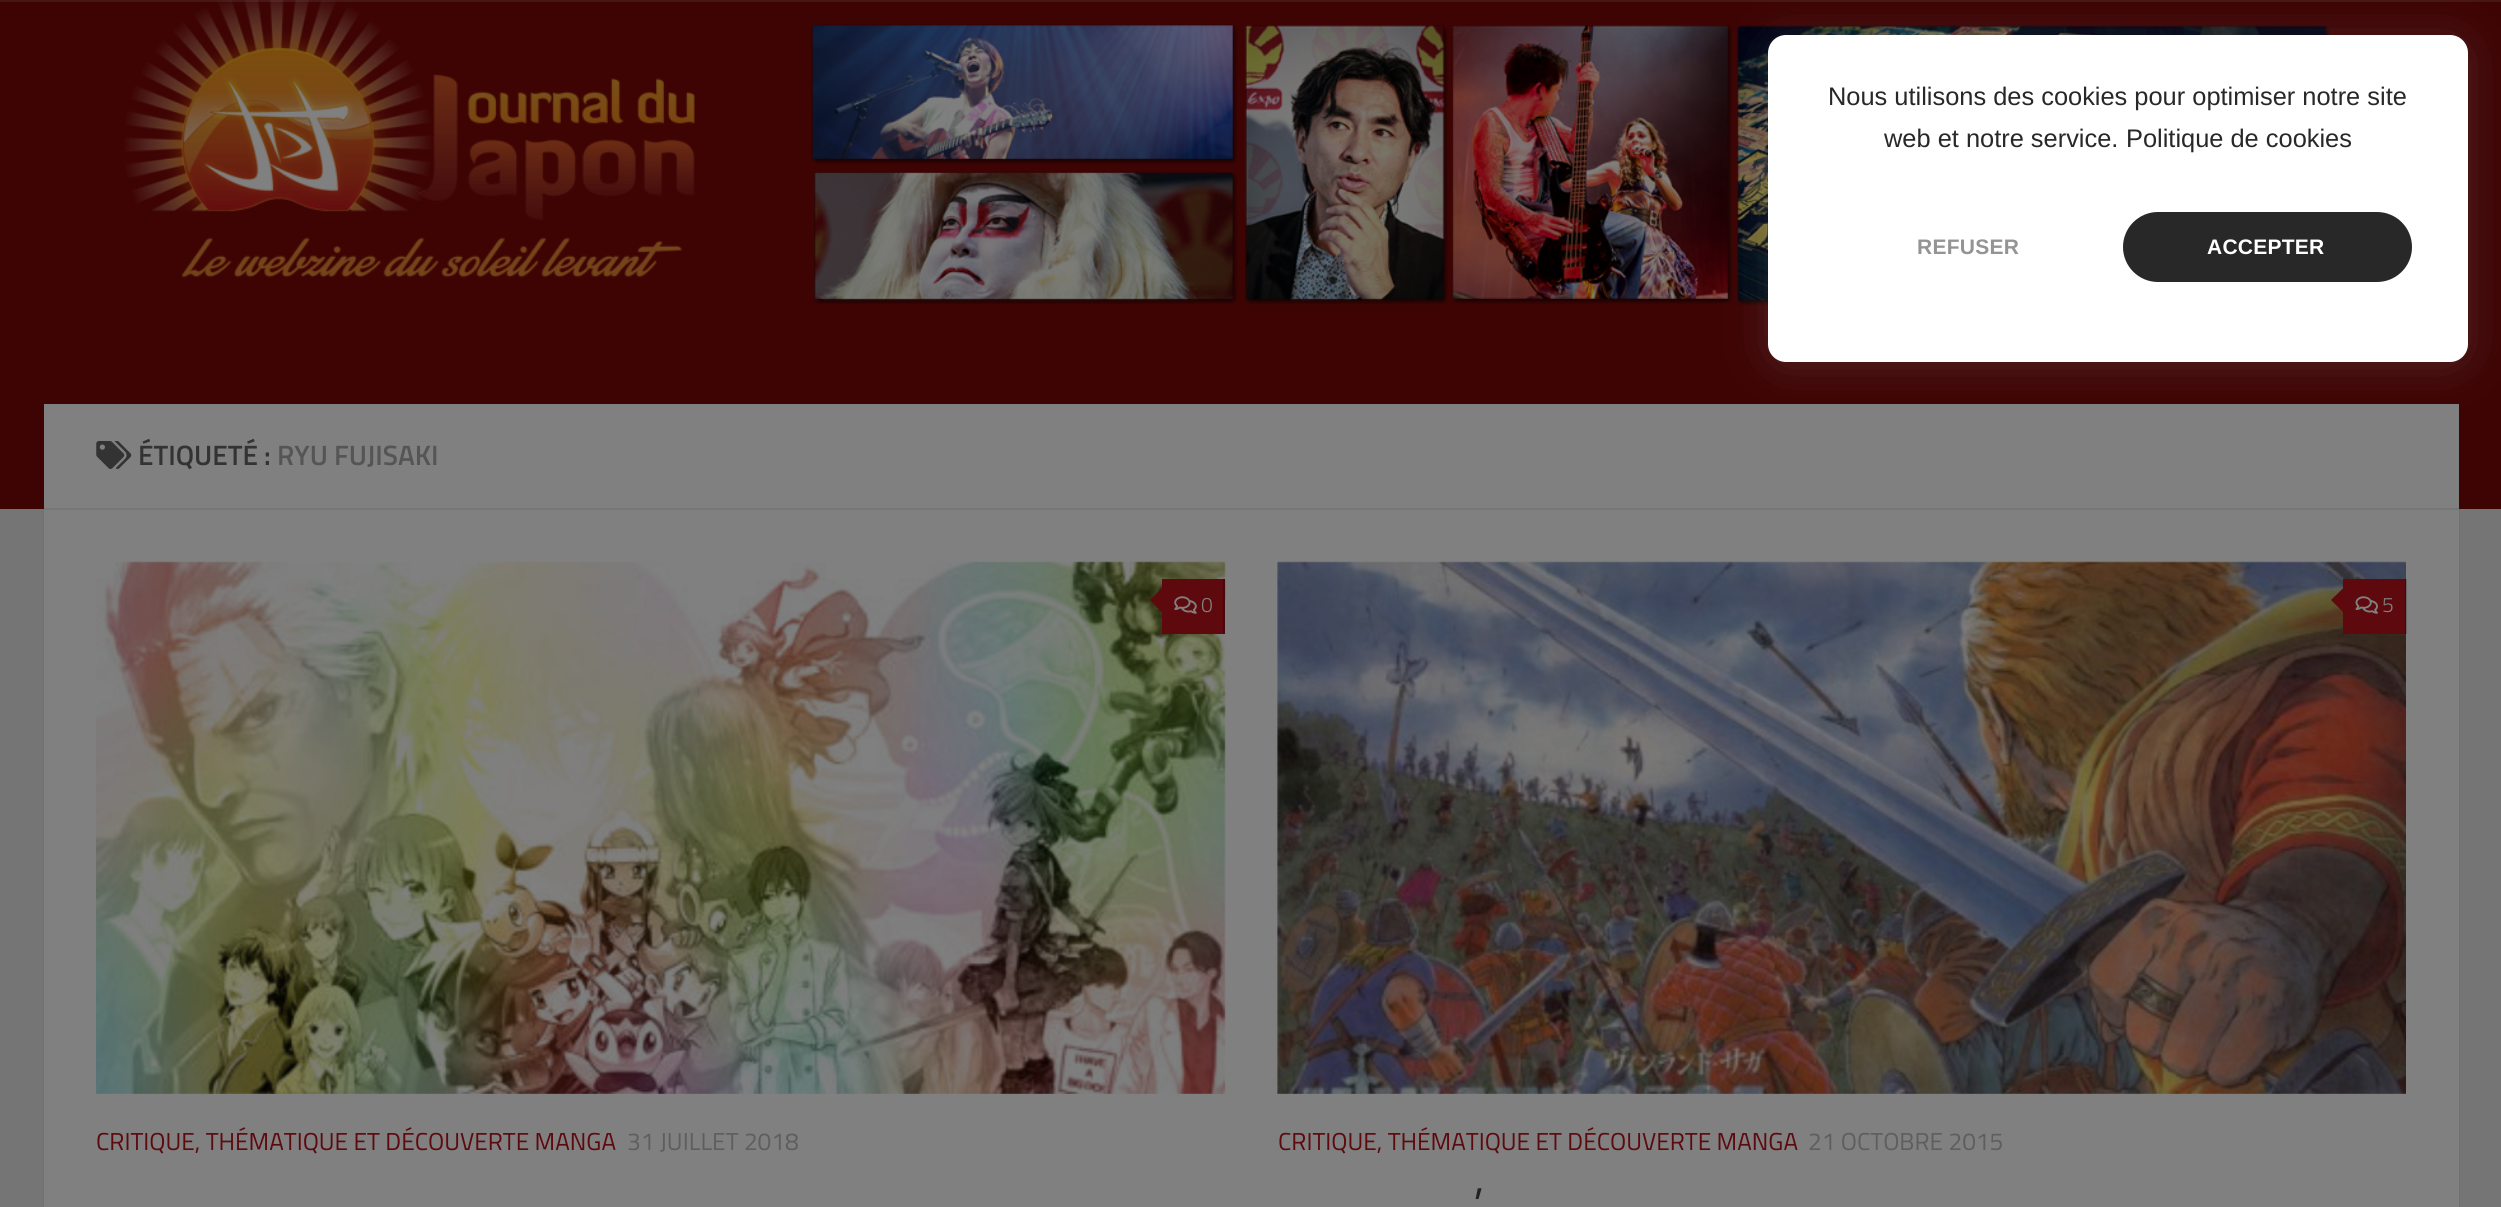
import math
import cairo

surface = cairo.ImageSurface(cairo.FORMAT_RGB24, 2501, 1207)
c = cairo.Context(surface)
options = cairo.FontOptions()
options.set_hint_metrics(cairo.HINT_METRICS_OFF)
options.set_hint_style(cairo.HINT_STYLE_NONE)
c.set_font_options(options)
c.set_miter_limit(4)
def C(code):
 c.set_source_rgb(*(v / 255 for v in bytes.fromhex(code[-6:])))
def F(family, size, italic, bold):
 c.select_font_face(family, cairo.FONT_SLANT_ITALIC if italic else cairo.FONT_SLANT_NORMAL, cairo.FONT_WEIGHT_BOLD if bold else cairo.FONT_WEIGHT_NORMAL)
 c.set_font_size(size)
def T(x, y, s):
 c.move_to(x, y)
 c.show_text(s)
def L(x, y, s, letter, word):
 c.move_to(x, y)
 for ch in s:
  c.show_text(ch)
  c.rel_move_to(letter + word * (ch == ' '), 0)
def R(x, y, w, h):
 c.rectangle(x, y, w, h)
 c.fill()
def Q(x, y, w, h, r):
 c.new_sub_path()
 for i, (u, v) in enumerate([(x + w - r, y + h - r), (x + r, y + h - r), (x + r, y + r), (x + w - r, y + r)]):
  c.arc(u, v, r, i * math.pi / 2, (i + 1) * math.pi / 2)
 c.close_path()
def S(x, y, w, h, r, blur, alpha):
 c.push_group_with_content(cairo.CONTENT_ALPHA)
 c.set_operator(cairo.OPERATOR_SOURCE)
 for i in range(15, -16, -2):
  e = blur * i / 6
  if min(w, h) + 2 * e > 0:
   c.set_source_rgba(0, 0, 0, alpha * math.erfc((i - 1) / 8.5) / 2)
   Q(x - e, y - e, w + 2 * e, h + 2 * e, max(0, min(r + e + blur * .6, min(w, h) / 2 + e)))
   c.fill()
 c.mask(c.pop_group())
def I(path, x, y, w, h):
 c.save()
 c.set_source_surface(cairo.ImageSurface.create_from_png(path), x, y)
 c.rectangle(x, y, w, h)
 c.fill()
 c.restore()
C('757575')
c.paint()
C('000000')
S(44,406,2415,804,0,1,.1)
C('3e0404')
R(0,0,2501,509)
I('1.png',125,0,2206,306)
c.set_source_rgba(0.502,0.502,0.502,0.15)
c.new_path()
c.move_to(0,0)
c.line_to(0,2)
c.line_to(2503,2)
c.line_to(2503,-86)
c.line_to(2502,-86)
c.line_to(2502,0)
c.close_path()
c.fill()
C('808080')
R(44,404,2415,803)
C('9c9c9c')
S(1768,39,700,327,18,21,.2)
C('ffffff')
Q(1768,35,700,327,18)
c.fill()
F('Liberation Sans',25.4,0,0)
C('282828')
T(1828,105,'Nous utilisons des cookies pour optimiser notre site')
T(1884,147,'web et notre service.')
T(2126,147,'Politique de cookies')
F('Liberation Sans',21,0,1)
C('949494')
L(1917,254,'REFUSER',.25,0)
C('282828')
Q(2123,212,289,70,35)
c.fill()
C('ffffff')
L(2207,254,'ACCEPTER',.25,0)
C('777777')
R(44,508,2415,2)
I('2.png',96,441,36,28)
F('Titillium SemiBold',28,0,0)
C('333333')
T(138,465,'ÉTIQUETÉ :')
C('555555')
T(277,465,'RYU FUJISAKI')
I('3.png',96,561,1130,533)
C('5d090e')
R(1162,579,61,55)
C('4a070b')
R(1223,579,2,55)
C('5d090e')
c.new_path()
c.move_to(1165.5,584.5)
c.line_to(1165.5,616)
c.line_to(1150,600)
c.close_path()
c.fill()
I('4.png',1174,596,23,18)
F('Titillium Light',21,0,0)
C('808080')
T(1201,612,'0')
F('Titillium',24.5,0,0)
C('5d090e')
T(96,1150,'CRITIQUE, THÉMATIQUE ET DÉCOUVERTE MANGA')
C('5e5e5e')
T(627,1150,'31 JUILLET 2018')
I('5.png',1277,561,1129,533)
C('5d090e')
R(2343,579,63,55)
c.set_source_rgba(0,0,0,0.2)
R(2405,579,2,55)
C('5d090e')
c.new_path()
c.move_to(2347,584.5)
c.line_to(2347,616)
c.line_to(2331,600)
c.close_path()
c.fill()
I('6.png',2355,596,23,18)
F('Titillium Light',21,0,0)
C('808080')
T(2382,612,'5')
F('Titillium',24.5,0,0)
C('5d090e')
T(1278,1150,'CRITIQUE, THÉMATIQUE ET DÉCOUVERTE MANGA')
C('5e5e5e')
T(1808,1150,'21 OCTOBRE 2015')
F('Titillium',49,0,0)
C('222222')
T(1473,1223,'’')
surface.write_to_png('o.png')
